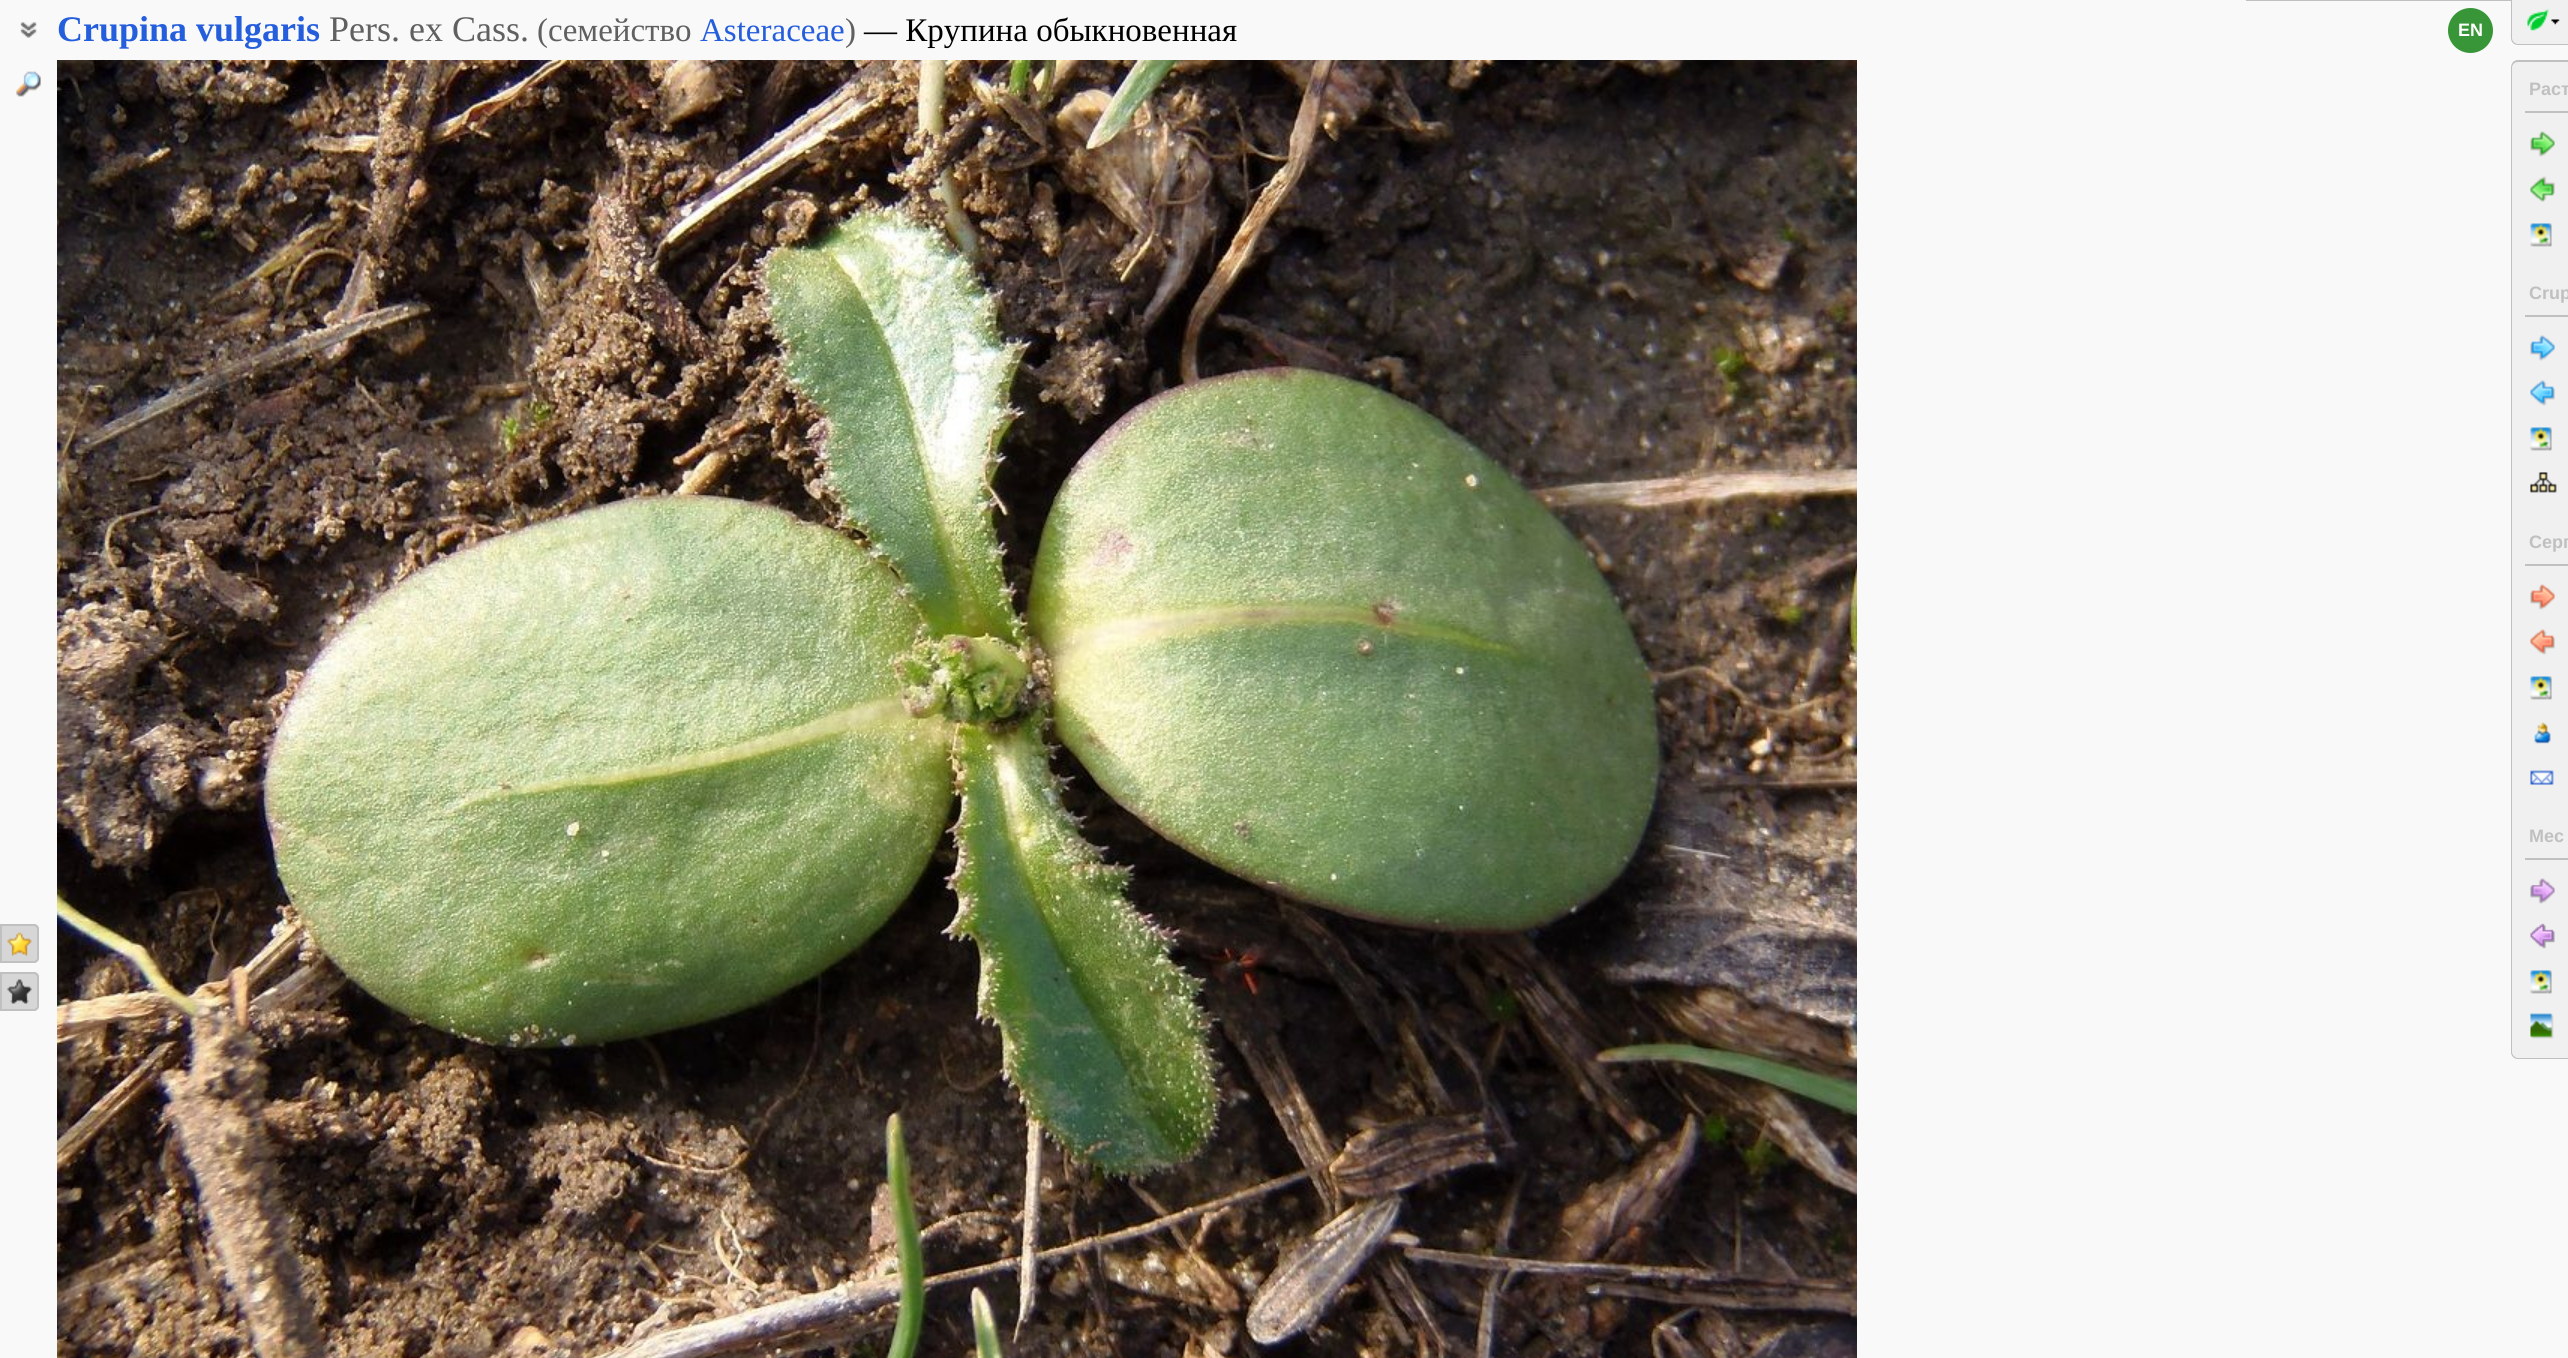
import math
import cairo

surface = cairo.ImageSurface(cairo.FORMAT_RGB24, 2568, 1358)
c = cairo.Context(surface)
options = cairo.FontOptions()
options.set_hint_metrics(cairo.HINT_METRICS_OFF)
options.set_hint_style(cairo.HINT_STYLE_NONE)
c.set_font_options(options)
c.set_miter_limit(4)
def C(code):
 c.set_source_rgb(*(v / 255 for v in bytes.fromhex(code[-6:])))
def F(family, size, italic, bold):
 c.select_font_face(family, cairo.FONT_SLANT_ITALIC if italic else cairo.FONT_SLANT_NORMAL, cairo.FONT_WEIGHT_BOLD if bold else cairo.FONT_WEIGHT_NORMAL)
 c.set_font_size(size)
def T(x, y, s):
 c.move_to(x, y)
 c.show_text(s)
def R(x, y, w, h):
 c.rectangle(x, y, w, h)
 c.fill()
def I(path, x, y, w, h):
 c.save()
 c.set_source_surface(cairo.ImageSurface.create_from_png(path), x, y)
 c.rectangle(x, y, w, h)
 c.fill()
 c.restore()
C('f9f9f9')
c.paint()
I('1.png',20,22,17,16)
F('Liberation Serif',36,0,1)
C('245edc')
T(57,41,'Crupina vulgaris')
F('Liberation Serif',36,0,0)
C('606060')
T(329,41,'Pers. ex Cass.')
F('Liberation Serif',33,0,0)
T(537,41,'(семейство')
C('245edc')
T(700,41,'Asteraceae')
C('606060')
T(845,41,')')
C('000000')
T(864,41,'— Крупина обыкновенная')
C('389638')
c.new_path()
c.arc(2470.5,30.5,22.5,0,2 * math.pi)
c.fill()
F('Liberation Sans',18,0,1)
C('fefefe')
T(2458,36,'EN')
I('2.png',16,71,25,26)
C('d6d6d6')
c.new_path()
c.move_to(0,924)
c.line_to(34,924)
c.curve_to(37,924,39,926,39,929)
c.line_to(39,958)
c.curve_to(39,961,37,963,34,963)
c.line_to(0,963)
c.close_path()
c.fill()
I('3.png',7,932,25,24)
c.new_path()
c.move_to(1,925)
c.line_to(34,925)
c.curve_to(36,925,38,927,38,929)
c.line_to(38,958)
c.curve_to(38,960,36,962,34,962)
c.line_to(1,962)
c.close_path()
C('c0c0c0')
c.stroke()
C('d6d6d6')
c.new_path()
c.move_to(0,972)
c.line_to(34,972)
c.curve_to(37,972,39,974,39,977)
c.line_to(39,1006)
c.curve_to(39,1009,37,1011,34,1011)
c.line_to(0,1011)
c.close_path()
c.fill()
I('4.png',7,979,25,25)
c.new_path()
c.move_to(1,973)
c.line_to(34,973)
c.curve_to(36,973,38,975,38,977)
c.line_to(38,1006)
c.curve_to(38,1008,36,1010,34,1010)
c.line_to(1,1010)
c.close_path()
C('c0c0c0')
c.stroke()
I('5.png',57,60,1800,1298)
R(2246,0,265,1)
C('f0f0f0')
c.new_path()
c.move_to(2511,0)
c.line_to(2568,0)
c.line_to(2568,45)
c.line_to(2519,45)
c.curve_to(2514.5,45,2511,41.5,2511,37)
c.close_path()
c.fill()
I('6.png',2527,8,22,23)
C('c0c0c0')
c.set_fill_rule(cairo.FILL_RULE_EVEN_ODD)
c.new_path()
c.move_to(2511,0)
c.line_to(2568,0)
c.line_to(2568,45)
c.line_to(2518,45)
c.curve_to(2514,45,2511,42,2511,38)
c.close_path()
c.move_to(2512,0)
c.line_to(2568,0)
c.line_to(2568,44)
c.line_to(2518,44)
c.curve_to(2515,44,2512,41,2512,38)
c.close_path()
c.fill()
I('7.png',2551,19,9,6)
C('f0f0f0')
c.new_path()
c.move_to(2519,60)
c.line_to(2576,60)
c.line_to(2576,1059)
c.line_to(2519,1059)
c.curve_to(2514.5,1059,2511,1055.5,2511,1051)
c.line_to(2511,68)
c.curve_to(2511,63.5,2514.5,60,2519,60)
c.close_path()
c.fill()
C('c0c0c0')
c.new_path()
c.move_to(2518,60)
c.line_to(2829,60)
c.line_to(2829,1059)
c.line_to(2518,1059)
c.curve_to(2514,1059,2511,1056,2511,1052)
c.line_to(2511,68)
c.curve_to(2511,63,2514,60,2518,60)
c.close_path()
c.move_to(2518,62)
c.line_to(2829,62)
c.line_to(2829,1058)
c.line_to(2518,1058)
c.curve_to(2515,1058,2512,1055,2512,1052)
c.line_to(2512,68)
c.curve_to(2512,64,2515,62,2518,62)
c.close_path()
c.fill()
R(2525,111,43,2)
T(2529,95,'Раст')
I('8.png',2530,131,25,26)
I('9.png',2530,176,25,26)
I('10.png',2530,223,22,24)
R(2525,315,43,2)
T(2529,299,'Crup')
I('11.png',2530,335,25,26)
I('12.png',2530,380,25,26)
I('10.png',2530,427,22,24)
I('13.png',2530,472,27,21)
R(2525,564,43,2)
T(2529,548,'Серг')
I('14.png',2530,584,25,26)
I('15.png',2530,629,25,26)
I('10.png',2530,676,22,24)
I('16.png',2534,722,17,22)
I('17.png',2530,770,24,15)
R(2525,858,43,2)
T(2529,842,'Мес')
I('18.png',2530,878,25,26)
I('19.png',2530,923,25,26)
I('10.png',2530,970,22,24)
I('20.png',2530,1013,24,26)
surface.write_to_png('o.png')
